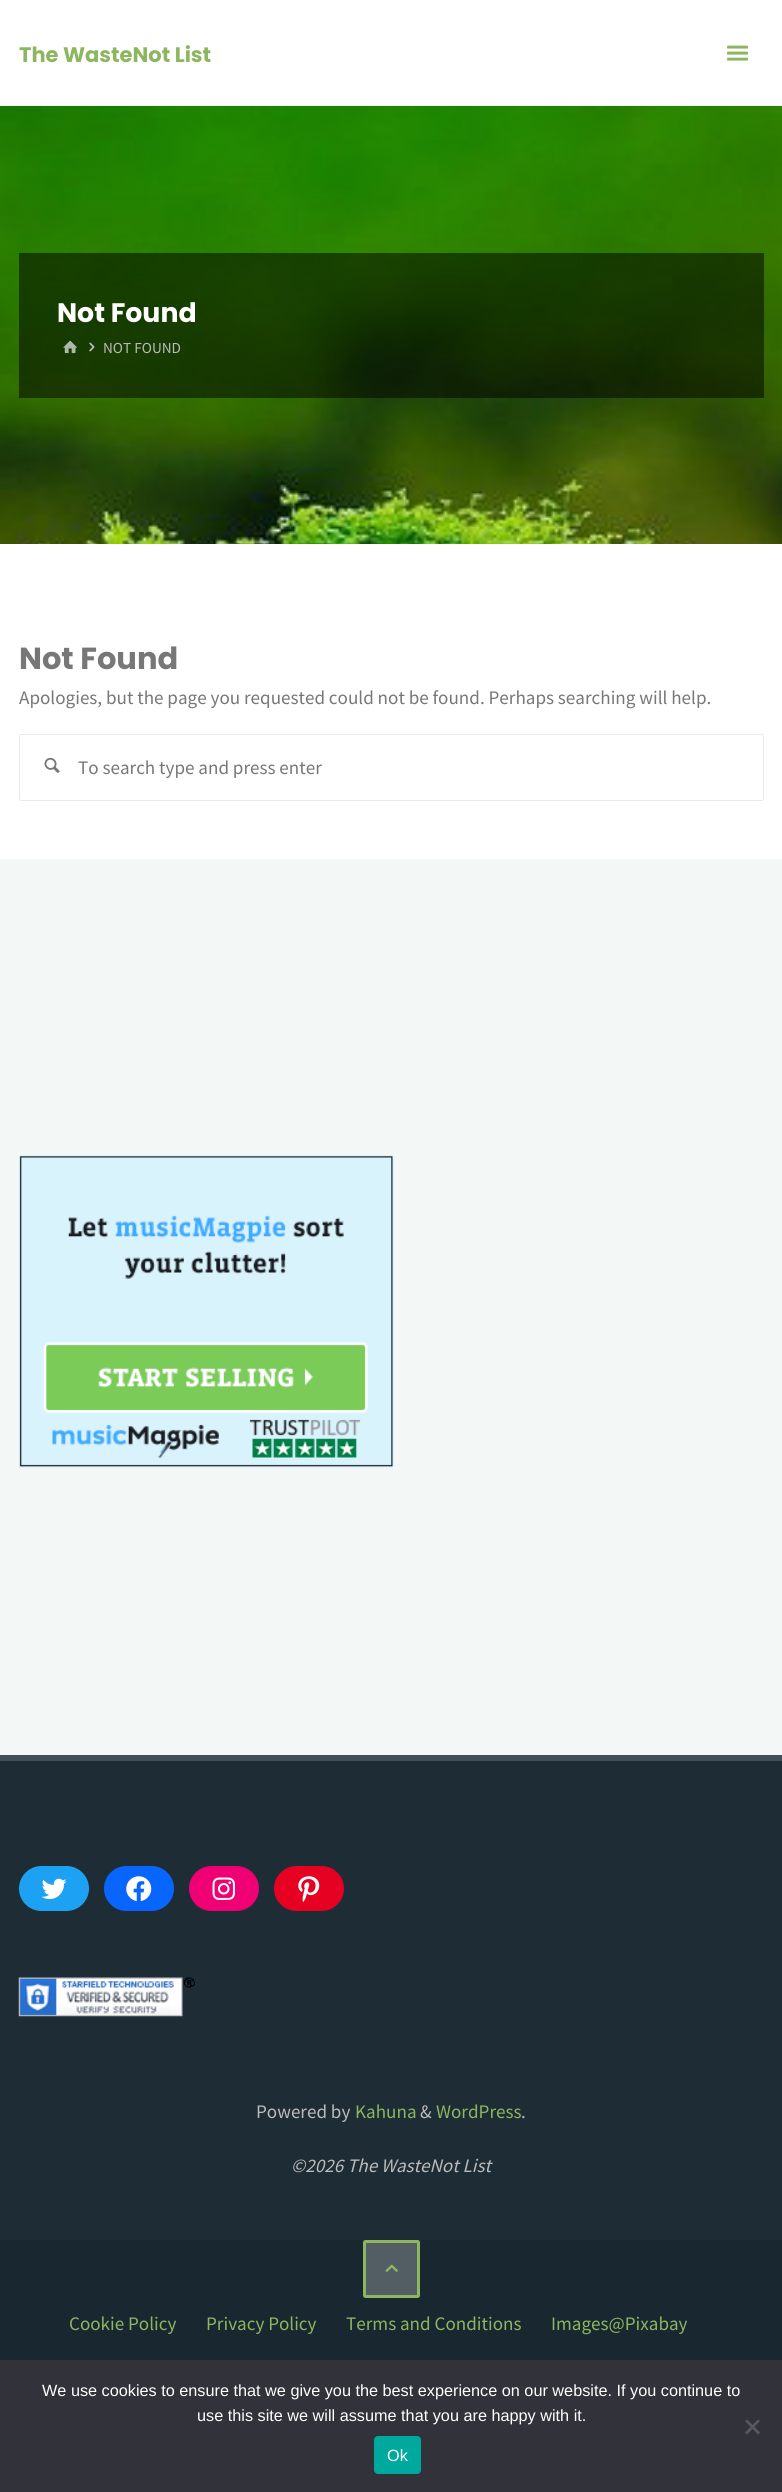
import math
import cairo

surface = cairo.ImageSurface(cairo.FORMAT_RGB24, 782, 2492)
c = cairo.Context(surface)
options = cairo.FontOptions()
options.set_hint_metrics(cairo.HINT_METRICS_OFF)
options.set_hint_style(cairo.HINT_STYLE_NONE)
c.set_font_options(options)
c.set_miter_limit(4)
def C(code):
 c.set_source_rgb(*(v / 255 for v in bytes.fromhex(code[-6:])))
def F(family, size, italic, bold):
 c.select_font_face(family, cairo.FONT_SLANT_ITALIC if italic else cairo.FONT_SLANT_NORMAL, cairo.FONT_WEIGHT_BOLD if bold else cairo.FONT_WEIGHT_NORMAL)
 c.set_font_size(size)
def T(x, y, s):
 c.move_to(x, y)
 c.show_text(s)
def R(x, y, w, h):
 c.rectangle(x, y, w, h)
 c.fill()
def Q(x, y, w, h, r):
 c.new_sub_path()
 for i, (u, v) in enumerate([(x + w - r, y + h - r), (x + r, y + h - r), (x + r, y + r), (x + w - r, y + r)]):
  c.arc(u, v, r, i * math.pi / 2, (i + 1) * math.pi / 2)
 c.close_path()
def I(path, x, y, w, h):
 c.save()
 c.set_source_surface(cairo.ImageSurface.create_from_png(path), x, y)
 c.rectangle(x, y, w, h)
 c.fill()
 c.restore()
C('f3f7f5')
c.paint()
C('ffffff')
R(0,0,782,105)
C('f2f2f2')
R(0,105,782,1)
F('Poppins',21,0,1)
C('8cb65f')
T(19,62,'The WasteNot List')
I('1.png',727,45,21,16)
I('2.png',0,106,782,438)
c.set_source_rgba(0,0,0,0.5)
R(19,253,745,145)
F('Poppins',26.75,0,1)
C('ffffff')
T(57,322,'Not Found')
I('3.png',63,340,14,14)
I('4.png',89,342,6,10)
F('Source Sans Pro',15.25,0,0)
C('bbbbbb')
T(103,353,'NOT FOUND')
C('ffffff')
R(0,544,782,315)
F('Poppins',30.5,0,1)
C('777777')
T(19,669,'Not Found')
F('Source Sans Pro',19.1,0,0)
T(19,704,'Apologies, but the page you requested could not be found. Perhaps searching will help.')
Q(19.5,734.5,744,66,2)
C('e9e9e9')
c.set_line_width(1)
c.stroke()
I('5.png',44,757,16,16)
C('777777')
T(78,774,'To search type and press enter')
I('6.png',18,1155,376,313)
C('1e2c35')
R(0,1761,782,479)
C('414f58')
R(0,1755,782,6)
C('1da1f2')
Q(19,1866,70,45,22.5)
c.fill()
I('7.png',41,1878,26,22)
C('0866ff')
Q(104,1866,70,45,22.5)
c.fill()
I('8.png',126,1876,26,26)
C('f00075')
Q(189,1866,70,45,22.5)
c.fill()
I('9.png',212,1877,23,23)
C('e60122')
Q(274,1866,70,45,22.5)
c.fill()
I('10.png',298,1876,22,27)
I('11.png',18,1977,177,40)
C('bbbbbb')
T(256,2118,'Powered by')
C('8cb65f')
T(355,2118,'Kahuna')
C('bbbbbb')
T(420,2118,'&')
C('8cb65f')
T(436,2118,'WordPress')
C('bbbbbb')
T(521,2118,'.')
F('Source Sans Pro',19.1,1,0)
T(291,2172,'©2026 The WasteNot List')
C('192730')
R(0,2240,782,120)
C('535d64')
Q(364.5,2241.5,54,55,1)
c.fill_preserve()
C('8cb65f')
c.set_line_width(3)
c.stroke()
I('12.png',385,2264,13,8)
F('Source Sans Pro',19.1,0,0)
T(69,2330,'Cookie Policy')
T(206,2330,'Privacy Policy')
T(346,2330,'Terms and Conditions')
T(551,2330,'Images@Pixabay')
C('32323a')
R(0,2360,782,132)
F('Liberation Sans',16.25,0,0)
C('ffffff')
T(42,2396,'We use cookies to ensure that we give you the best experience on our website. If you continue to')
T(197,2421,'use this site we will assume that you are happy with it.')
C('59595d')
c.new_path()
c.move_to(758,2419.5)
c.line_to(760,2421)
c.line_to(747,2434.5)
c.line_to(745,2432.5)
c.close_path()
c.fill()
c.new_path()
c.move_to(745,2421)
c.line_to(747,2419.5)
c.line_to(760,2432.5)
c.line_to(758,2434.5)
c.close_path()
c.fill()
C('00a99d')
Q(374,2436,47,38,4)
c.fill()
C('ffffff')
T(387,2461,'Ok')
surface.write_to_png('o.png')
